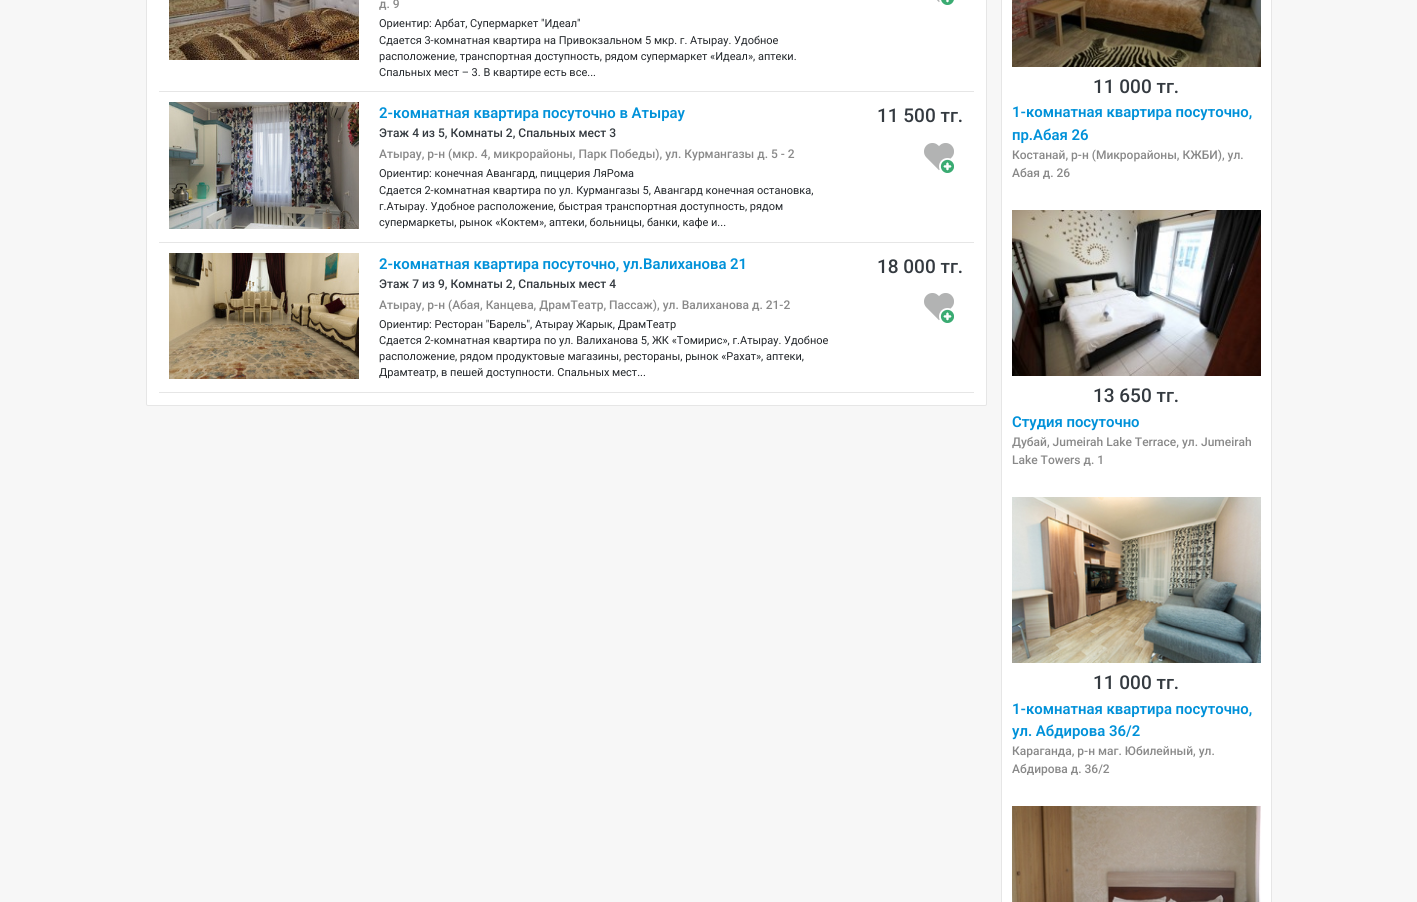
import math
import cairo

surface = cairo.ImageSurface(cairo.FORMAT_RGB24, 1417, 902)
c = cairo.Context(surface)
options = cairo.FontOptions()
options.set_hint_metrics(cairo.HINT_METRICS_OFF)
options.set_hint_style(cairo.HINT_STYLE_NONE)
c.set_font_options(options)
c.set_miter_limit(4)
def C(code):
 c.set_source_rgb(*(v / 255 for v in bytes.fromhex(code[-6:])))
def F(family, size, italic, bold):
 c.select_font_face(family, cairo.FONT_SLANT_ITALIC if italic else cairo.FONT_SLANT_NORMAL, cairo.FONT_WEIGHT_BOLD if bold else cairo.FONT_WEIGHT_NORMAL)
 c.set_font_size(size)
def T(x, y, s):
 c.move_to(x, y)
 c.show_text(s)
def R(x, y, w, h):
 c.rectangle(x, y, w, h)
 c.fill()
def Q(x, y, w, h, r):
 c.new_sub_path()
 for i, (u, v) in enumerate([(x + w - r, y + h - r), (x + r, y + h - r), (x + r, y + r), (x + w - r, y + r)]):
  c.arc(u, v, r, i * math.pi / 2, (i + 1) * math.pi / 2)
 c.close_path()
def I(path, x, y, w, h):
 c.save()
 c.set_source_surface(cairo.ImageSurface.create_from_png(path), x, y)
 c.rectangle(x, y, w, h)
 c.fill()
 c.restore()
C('f7f7f7')
c.paint()
C('ffffff')
Q(146.5,-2.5,840,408,1.5)
c.fill_preserve()
C('e6e6e6')
c.set_line_width(1)
c.stroke()
R(159,91,815,1)
I('1.png',169,0,190,60)
F('Roboto Medium',12,0,0)
C('898989')
T(379,8,'д. 9')
F('Roboto',11,0,0)
C('212529')
T(379,27,'Ориентир: Арбат, Супермаркет "Идеал"')
T(379,44,'Сдается 3-комнатная квартира на Привокзальном 5 мкр. г. Атырау. Удобное')
T(379,60,'расположение, транспортная доступность, рядом супермаркет «Идеал», аптеки.')
T(379,76,'Спальных мест – 3. В квартире есть все...')
I('2.png',937,0,17,5)
C('e6e6e6')
R(159,242,815,1)
I('3.png',169,102,190,127)
F('Roboto SemiBold',14.9,0,0)
C('0091d9')
T(379,118,'2-комнатная квартира посуточно в Атырау')
F('Roboto Medium',12,0,0)
C('343a40')
T(379,137,'Этаж 4 из 5, Комнаты 2, Спальных мест 3')
C('898989')
T(379,158,'Атырау, р-н (мкр. 4, микрорайоны, Парк Победы), ул. Курмангазы д. 5 - 2')
F('Roboto',11,0,0)
C('212529')
T(379,177,'Ориентир: конечная Авангард, пиццерия ЛяРома')
T(379,194,'Сдается 2-комнатная квартира по ул. Курмангазы 5, Авангард конечная остановка,')
T(379,210,'г.Атырау. Удобное расположение, быстрая транспортная доступность, рядом')
T(379,226,'супермаркеты, рынок «Коктем», аптеки, больницы, банки, кафе и...')
F('Roboto Medium',19,0,0)
C('343a40')
T(877,122,'11 500 тг.')
I('4.png',924,143,30,30)
C('e6e6e6')
R(159,392,815,1)
I('5.png',169,253,190,126)
F('Roboto SemiBold',14.9,0,0)
C('0091d9')
T(379,269,'2-комнатная квартира посуточно, ул.Валиханова 21')
F('Roboto Medium',12,0,0)
C('343a40')
T(379,288,'Этаж 7 из 9, Комнаты 2, Спальных мест 4')
C('898989')
T(379,309,'Атырау, р-н (Абая, Канцева, ДрамТеатр, Пассаж), ул. Валиханова д. 21-2')
F('Roboto',11,0,0)
C('212529')
T(379,328,'Ориентир: Ресторан "Барель", Атырау Жарык, ДрамТеатр')
T(379,344,'Сдается 2-комнатная квартира по ул. Валиханова 5, ЖК «Томирис», г.Атырау. Удобное')
T(379,360,'расположение, рядом продуктовые магазины, рестораны, рынок «Рахат», аптеки,')
T(379,376,'Драмтеатр, в пешей доступности. Спальных мест...')
F('Roboto Medium',19,0,0)
C('343a40')
T(877,273,'18 000 тг.')
I('4.png',924,293,30,30)
C('ffffff')
c.rectangle(1001.5,-.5,270,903)
c.fill_preserve()
C('e6e6e6')
c.stroke()
I('6.png',1012,0,249,67)
C('343a40')
T(1093,93,'11 000 тг.')
F('Roboto SemiBold',14.9,0,0)
C('0091d9')
T(1012,117,'1-комнатная квартира посуточно,')
T(1012,140,'пр.Абая 26')
F('Roboto Medium',12,0,0)
C('898989')
T(1012,159,'Костанай, р-н (Микрорайоны, КЖБИ), ул.')
T(1012,177,'Абая д. 26')
I('7.png',1012,210,249,166)
F('Roboto Medium',19,0,0)
C('343a40')
T(1093,402,'13 650 тг.')
F('Roboto SemiBold',14.9,0,0)
C('0091d9')
T(1012,427,'Студия посуточно')
F('Roboto Medium',12,0,0)
C('898989')
T(1012,446,'Дубай, Jumeirah Lake Terrace, ул. Jumeirah')
T(1012,464,'Lake Towers д. 1')
I('8.png',1012,497,249,166)
F('Roboto Medium',19,0,0)
C('343a40')
T(1093,689,'11 000 тг.')
F('Roboto SemiBold',14.9,0,0)
C('0091d9')
T(1012,714,'1-комнатная квартира посуточно,')
T(1012,736,'ул. Абдирова 36/2')
F('Roboto Medium',12,0,0)
C('898989')
T(1012,755,'Караганда, р-н маг. Юбилейный, ул.')
T(1012,773,'Абдирова д. 36/2')
I('9.png',1012,806,249,96)
surface.write_to_png('o.png')
